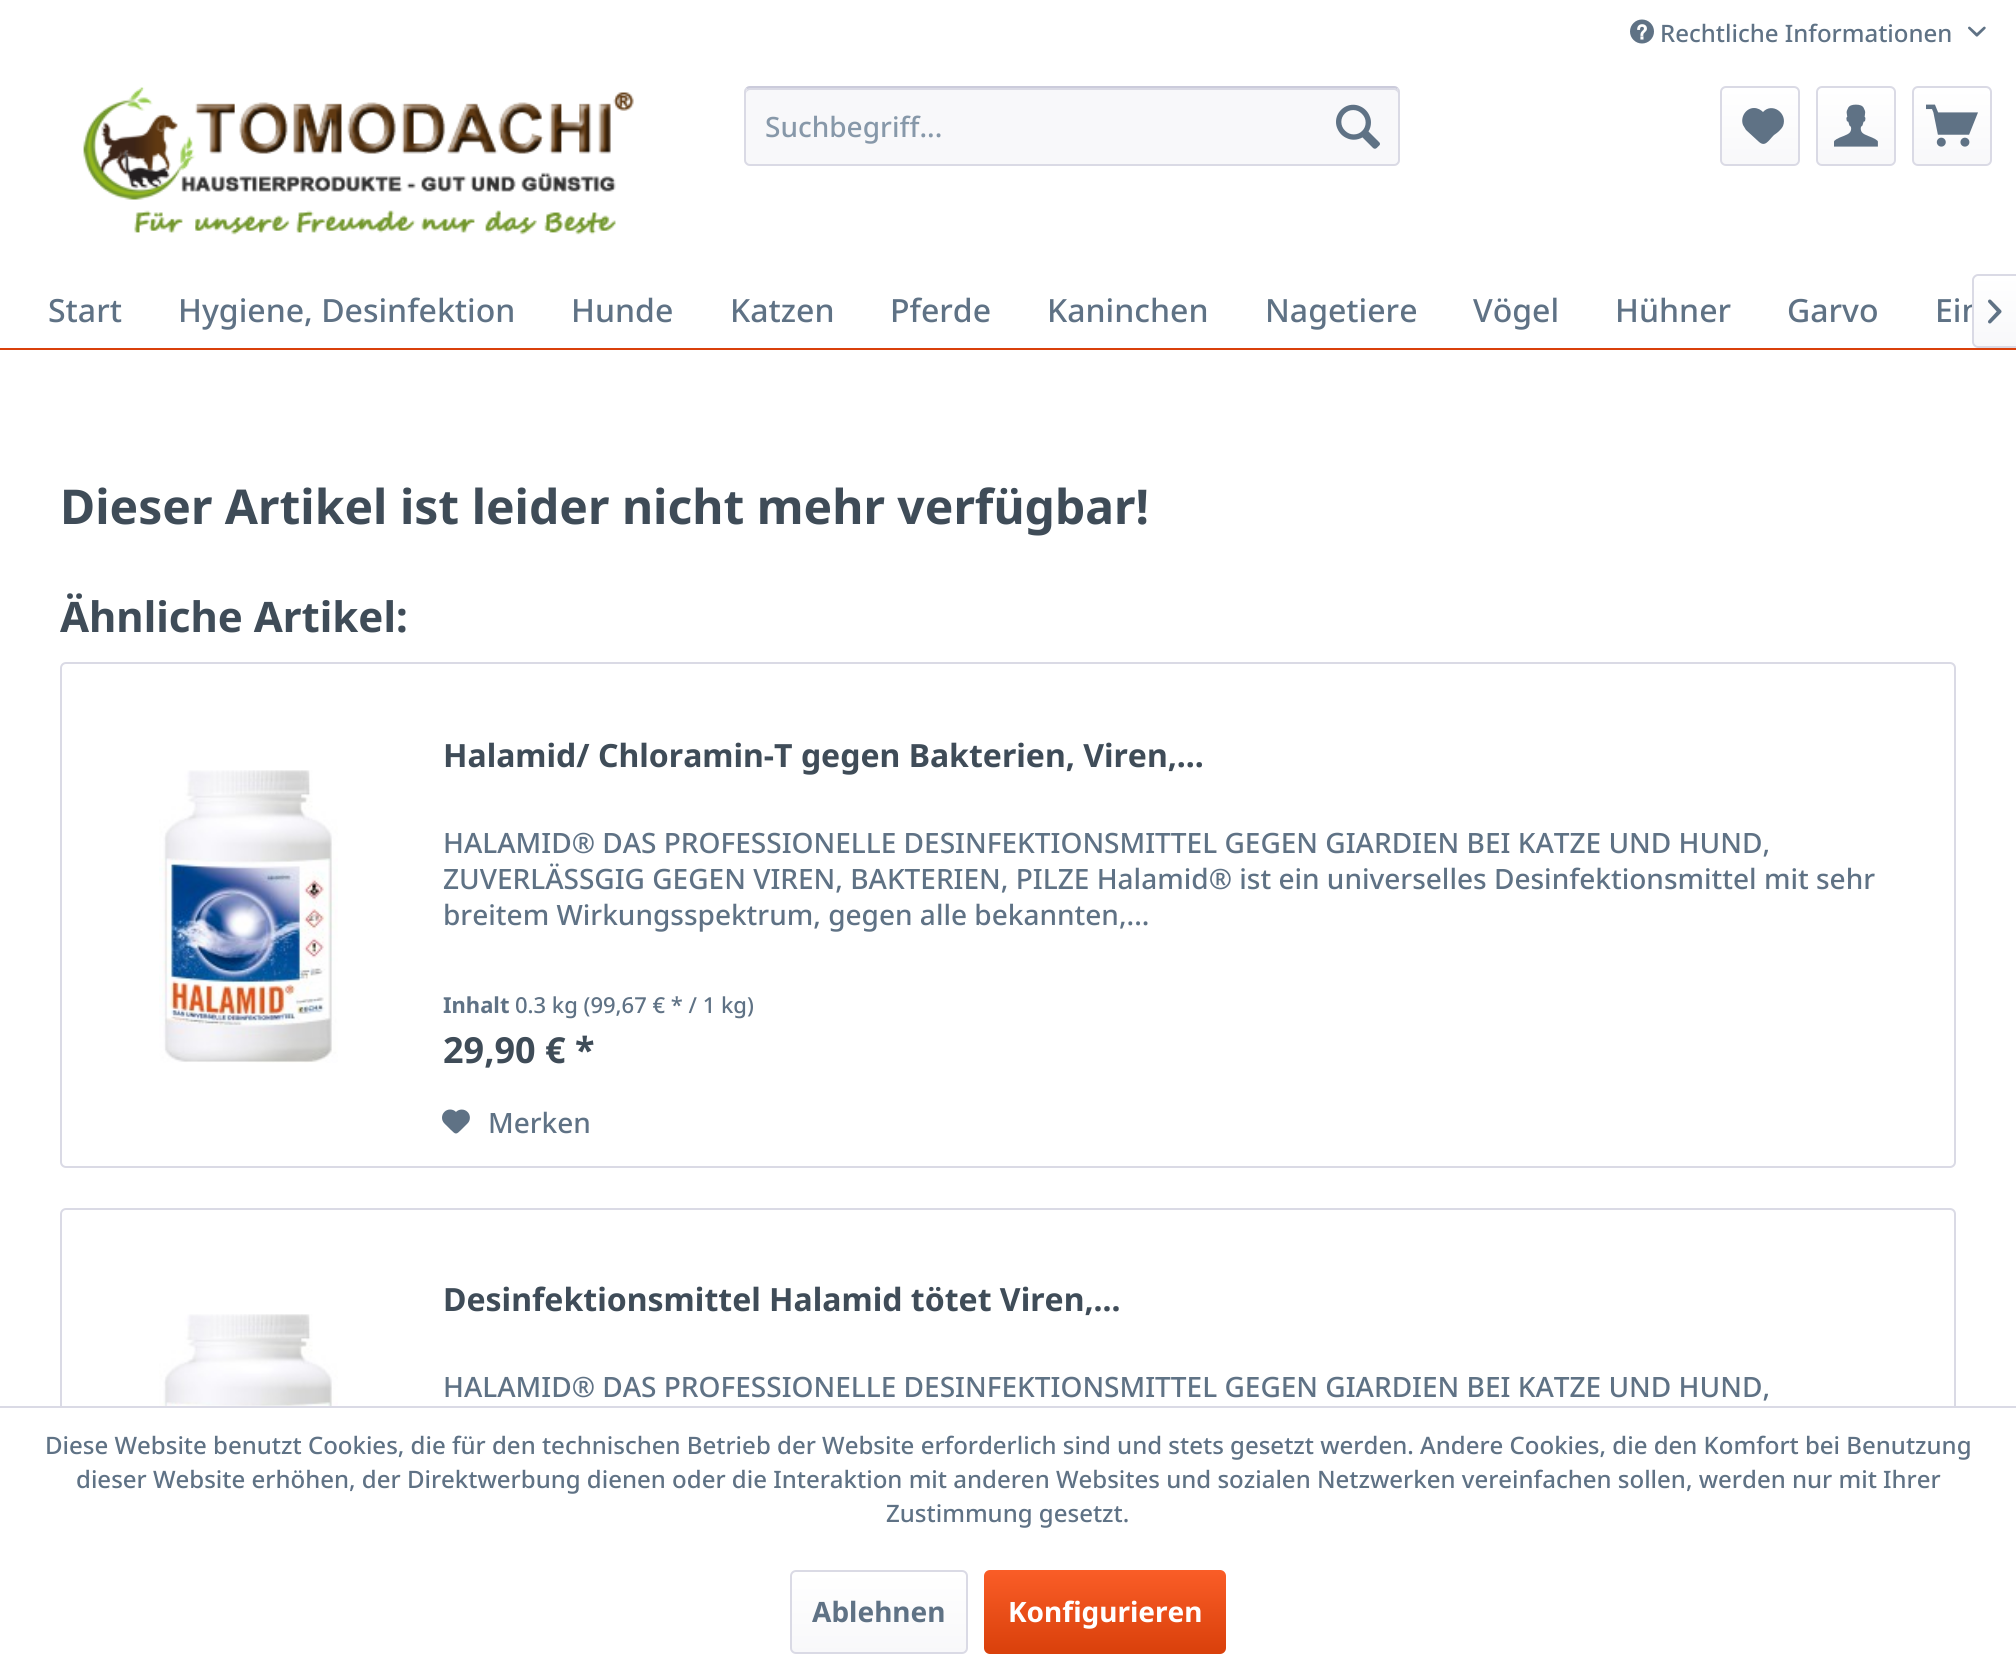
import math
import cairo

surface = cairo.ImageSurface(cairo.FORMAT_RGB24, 2016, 1673)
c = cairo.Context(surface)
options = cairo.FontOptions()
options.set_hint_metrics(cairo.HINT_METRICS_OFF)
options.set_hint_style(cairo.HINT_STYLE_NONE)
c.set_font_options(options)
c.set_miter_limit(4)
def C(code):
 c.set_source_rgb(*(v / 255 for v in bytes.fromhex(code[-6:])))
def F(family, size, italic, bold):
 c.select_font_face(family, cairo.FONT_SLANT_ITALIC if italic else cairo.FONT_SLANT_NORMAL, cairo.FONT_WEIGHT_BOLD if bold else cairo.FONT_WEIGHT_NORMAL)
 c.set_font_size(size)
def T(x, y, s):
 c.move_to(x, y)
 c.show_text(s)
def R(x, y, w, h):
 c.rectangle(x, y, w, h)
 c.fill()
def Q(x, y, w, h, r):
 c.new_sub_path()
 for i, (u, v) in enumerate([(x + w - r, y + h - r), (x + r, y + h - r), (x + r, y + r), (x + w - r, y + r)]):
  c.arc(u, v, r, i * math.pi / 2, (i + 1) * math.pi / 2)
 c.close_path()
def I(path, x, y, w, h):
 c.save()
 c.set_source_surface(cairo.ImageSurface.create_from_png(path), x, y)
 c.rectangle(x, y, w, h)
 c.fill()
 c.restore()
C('ffffff')
c.paint()
I('1.png',1630,19,24,25)
F('Noto Sans Medium',24,0,0)
C('5f7285')
T(1660,42,'Rechtliche Informationen')
I('2.png',1968,26,18,11)
I('3.png',83,87,551,148)
C('f8f8fa')
Q(744,86,656,80,6)
c.fill()
C('dadae5')
c.new_path()
c.move_to(750,90)
c.line_to(1394,90)
c.curve_to(1396,90,1398,92,1398,94)
c.curve_to(1398,91,1398,88,1394,88)
c.line_to(748,88)
c.line_to(747,90)
c.curve_to(746,91,746,93,746,94)
c.curve_to(746,92,748,90,750,90)
c.close_path()
c.fill()
c.new_path()
c.move_to(746.5,88.5)
c.curve_to(747.5,87.5,748.5,87,750,87)
c.line_to(1394,87)
c.curve_to(1395.5,87,1396.5,87.5,1397.5,88.5)
C('cbcbdb')
c.stroke()
c.new_path()
c.move_to(1397.5,88.5)
c.curve_to(1398.5,89.5,1399,90.5,1399,92)
c.line_to(1399,160)
c.curve_to(1399,161.5,1398.5,162.5,1397.5,163.5)
c.curve_to(1396.5,164.5,1395.5,165,1394,165)
c.line_to(750,165)
c.curve_to(748.5,165,747.5,164.5,746.5,163.5)
c.curve_to(745.5,162.5,745,161.5,745,160)
c.line_to(745,92)
c.curve_to(745,90.5,745.5,89.5,746.5,88.5)
C('dadae5')
c.stroke()
F('Noto Sans Medium',28,0,0)
C('8798a9')
T(765,137,'Suchbegriff...')
I('4.png',1336,104,44,45)
gradient = cairo.LinearGradient(1760,88,1760,164)
gradient.add_color_stop_rgba(0,1,1,1,1)
gradient.add_color_stop_rgba(1,0.973,0.973,0.98,1)
c.set_source(gradient)
Q(1722,88,76,76,4)
c.fill()
Q(1721,87,78,78,5)
C('dadae5')
c.stroke()
C('5f7285')
c.new_path()
c.move_to(1754,108)
c.curve_to(1746,108,1740,117,1743,125)
c.line_to(1746,130)
c.line_to(1758,141)
c.curve_to(1765,148,1768,141,1774,135)
c.curve_to(1777,133,1781,130,1783,126)
c.curve_to(1788,113,1772,102,1763,112)
c.curve_to(1761,110,1758,108,1754,108)
c.close_path()
c.fill()
gradient = cairo.LinearGradient(1856,88,1856,164)
gradient.add_color_stop_rgba(0,1,1,1,1)
gradient.add_color_stop_rgba(1,0.973,0.973,0.98,1)
c.set_source(gradient)
Q(1818,88,76,76,4)
c.fill()
Q(1817,87,78,78,5)
C('dadae5')
c.stroke()
I('5.png',1834,104,44,43)
gradient = cairo.LinearGradient(1952,88,1952,164)
gradient.add_color_stop_rgba(0,1,1,1,1)
gradient.add_color_stop_rgba(1,0.973,0.973,0.98,1)
c.set_source(gradient)
Q(1914,88,76,76,4)
c.fill()
Q(1913,87,78,78,5)
C('dadae5')
c.stroke()
I('6.png',1926,104,52,43)
C('d9400b')
R(0,348,2016,2)
F('Noto Sans Medium',32,0,0)
C('5f7285')
T(48,322,'Start')
T(178,322,'Hygiene, Desinfektion')
T(571,322,'Hunde')
T(730,322,'Katzen')
T(890,322,'Pferde')
T(1047,322,'Kaninchen')
T(1265,322,'Nagetiere')
T(1473,322,'Vögel')
T(1615,322,'Hühner')
T(1787,322,'Garvo')
T(1935,322,'Ein')
gradient = cairo.LinearGradient(1995,276,1995,346)
gradient.add_color_stop_rgba(0,1,1,1,1)
gradient.add_color_stop_rgba(1,0.973,0.973,0.98,1)
c.set_source(gradient)
c.new_path()
c.move_to(1978,276)
c.line_to(2016,276)
c.line_to(2016,346)
c.line_to(1978,346)
c.curve_to(1976,346,1974,344,1974,342)
c.line_to(1974,280)
c.curve_to(1974,278,1976,276,1978,276)
c.close_path()
c.fill()
C('dadae5')
c.set_fill_rule(cairo.FILL_RULE_EVEN_ODD)
c.new_path()
c.move_to(1978,274)
c.line_to(2016,274)
c.line_to(2016,348)
c.line_to(1978,348)
c.curve_to(1975,348,1972,345,1972,342)
c.line_to(1972,280)
c.curve_to(1972,277,1975,274,1978,274)
c.close_path()
c.move_to(1978,276)
c.line_to(2016,276)
c.line_to(2016,346)
c.line_to(1978,346)
c.curve_to(1976,346,1974,344,1974,342)
c.line_to(1974,280)
c.curve_to(1974,278,1976,276,1978,276)
c.close_path()
c.fill()
I('7.png',1988,299,14,25)
F('Noto Sans',48,0,1)
C('3f4c58')
T(60,524,'Dieser Artikel ist leider nicht mehr verfügbar!')
F('Noto Sans',42,0,1)
T(60,632,'Ähnliche Artikel:')
Q(61,663,1894,504,5)
C('dadae5')
c.stroke()
F('Noto Sans',32,0,1)
C('3f4c58')
T(443,767,'Halamid/ Chloramin-T gegen Bakterien, Viren,...')
I('8.png',159,770,179,293)
F('Noto Sans Medium',28,0,0)
C('5f7285')
T(443,853,'HALAMID® DAS PROFESSIONELLE DESINFEKTIONSMITTEL GEGEN GIARDIEN BEI KATZE UND HUND,')
T(443,889,'ZUVERLÄSSGIG GEGEN VIREN, BAKTERIEN, PILZE Halamid® ist ein universelles Desinfektionsmittel mit sehr')
T(443,925,'breitem Wirkungsspektrum, gegen alle bekannten,...')
F('Noto Sans',22,0,1)
T(443,1013,'Inhalt')
F('Noto Sans Medium',22,0,0)
T(515,1013,'0.3 kg (99,67 € * / 1 kg)')
F('Noto Sans',36,0,1)
C('3f4c58')
T(443,1063,'29,90 € *')
I('9.png',442,1109,28,25)
F('Noto Sans Medium',28,0,0)
C('5f7285')
T(488,1133,'Merken')
Q(61,1209,1894,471,5)
C('dadae5')
c.stroke()
F('Noto Sans',32,0,1)
C('3f4c58')
T(443,1311,'Desinfektionsmittel Halamid tötet Viren,...')
I('10.png',159,1314,179,92)
F('Noto Sans Medium',28,0,0)
C('5f7285')
T(443,1397,'HALAMID® DAS PROFESSIONELLE DESINFEKTIONSMITTEL GEGEN GIARDIEN BEI KATZE UND HUND,')
C('ffffff')
R(60,1408,1896,265)
C('dadae5')
R(0,1406,2016,2)
F('Noto Sans Medium',24,0,0)
C('5f7285')
T(45,1454,'Diese Website benutzt Cookies, die für den technischen Betrieb der Website erforderlich sind und stets gesetzt werden. Andere Cookies, die den Komfort bei Benutzung')
T(76,1488,'dieser Website erhöhen, der Direktwerbung dienen oder die Interaktion mit anderen Websites und sozialen Netzwerken vereinfachen sollen, werden nur mit Ihrer')
T(886,1522,'Zustimmung gesetzt.')
gradient = cairo.LinearGradient(879,1572,879,1652)
gradient.add_color_stop_rgba(0,1,1,1,1)
gradient.add_color_stop_rgba(1,0.973,0.973,0.98,1)
c.set_source(gradient)
Q(792,1572,174,80,4)
c.fill()
Q(791,1571,176,82,5)
C('dadae5')
c.stroke()
F('Noto Sans',28,0,1)
C('5f7285')
T(812,1622,'Ablehnen')
gradient = cairo.LinearGradient(1105,1570,1105,1654)
gradient.add_color_stop_rgba(0,0.98,0.365,0.153,1)
gradient.add_color_stop_rgba(1,0.851,0.251,0.043,1)
c.set_source(gradient)
Q(984,1570,242,84,6)
c.fill()
C('ffffff')
T(1008,1622,'Konfigurieren')
surface.write_to_png('o.png')
